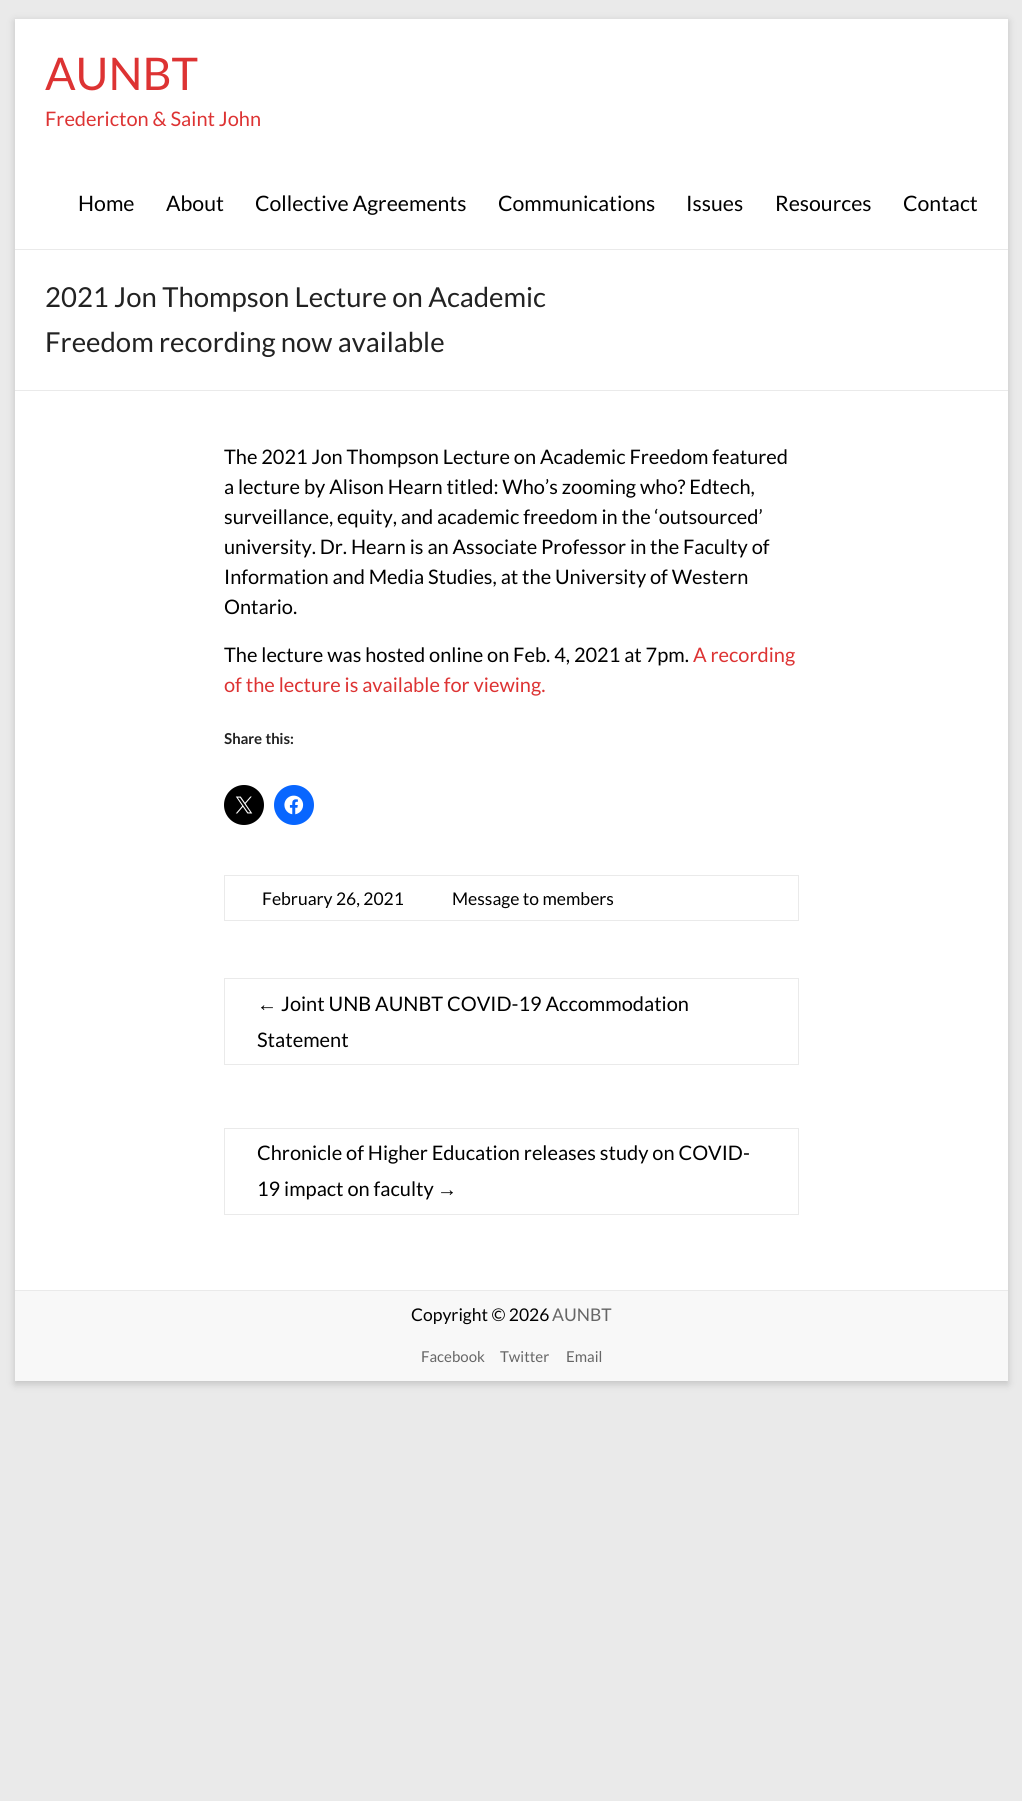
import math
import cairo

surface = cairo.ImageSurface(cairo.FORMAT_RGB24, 1022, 1801)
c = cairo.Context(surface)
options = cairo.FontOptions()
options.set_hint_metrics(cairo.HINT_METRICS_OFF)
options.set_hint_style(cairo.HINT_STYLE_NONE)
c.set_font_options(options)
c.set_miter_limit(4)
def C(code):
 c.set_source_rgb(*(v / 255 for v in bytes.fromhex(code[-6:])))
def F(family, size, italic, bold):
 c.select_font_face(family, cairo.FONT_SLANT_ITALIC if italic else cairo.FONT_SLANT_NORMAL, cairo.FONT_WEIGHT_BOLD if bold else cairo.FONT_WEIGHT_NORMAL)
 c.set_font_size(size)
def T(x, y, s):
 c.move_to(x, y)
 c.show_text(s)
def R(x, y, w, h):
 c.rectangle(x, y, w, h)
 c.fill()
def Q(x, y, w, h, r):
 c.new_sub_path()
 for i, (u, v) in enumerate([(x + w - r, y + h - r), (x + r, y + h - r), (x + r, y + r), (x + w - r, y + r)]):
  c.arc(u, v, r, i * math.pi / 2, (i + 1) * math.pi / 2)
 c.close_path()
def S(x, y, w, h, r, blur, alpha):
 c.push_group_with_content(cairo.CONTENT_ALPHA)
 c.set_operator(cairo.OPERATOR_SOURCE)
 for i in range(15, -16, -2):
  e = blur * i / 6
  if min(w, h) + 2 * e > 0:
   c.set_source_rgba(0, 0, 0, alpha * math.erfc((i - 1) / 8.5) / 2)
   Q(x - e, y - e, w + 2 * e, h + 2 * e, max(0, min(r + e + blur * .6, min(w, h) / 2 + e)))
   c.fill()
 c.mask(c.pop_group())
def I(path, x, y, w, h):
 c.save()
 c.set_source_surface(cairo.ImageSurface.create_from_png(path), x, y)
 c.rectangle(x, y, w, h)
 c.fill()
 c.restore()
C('eaeaea')
c.paint()
C('646464')
S(15,21,993,1363,0,4,.3)
C('ffffff')
R(15,19,993,1271)
C('eaeaea')
R(15,249,993,1)
F('Lato',45,0,0)
C('dd3333')
T(45,90,'AUNBT')
F('Lato',20,0,0)
T(45,126,'Fredericton & Saint John')
F('Lato',21.25,0,0)
C('000000')
T(78,211,'Home')
T(166,211,'About')
T(255,211,'Collective Agreements')
T(498,211,'Communications')
T(686,211,'Issues')
T(775,211,'Resources')
T(903,211,'Contact')
C('eaeaea')
R(15,390,993,1)
F('Lato',27.5,0,0)
C('222222')
T(45,307,'2021 Jon Thompson Lecture on Academic')
T(45,352,'Freedom recording now available')
F('Lato',20,0,0)
C('000000')
T(224,464,'The 2021 Jon Thompson Lecture on Academic Freedom featured')
T(224,494,'a lecture by Alison Hearn titled: Who’s zooming who? Edtech,')
T(224,524,'surveillance, equity, and academic freedom in the ‘outsourced’')
T(224,554,'university. Dr. Hearn is an Associate Professor in the Faculty of')
T(224,584,'Information and Media Studies, at the University of Western')
T(224,614,'Ontario.')
T(224,662,'The lecture was hosted online on Feb. 4, 2021 at 7pm.')
C('dd3333')
T(693,662,'A recording')
T(224,692,'of the lecture is available for viewing.')
F('Lato',15,0,1)
C('222222')
T(224,744,'Share this:')
C('000000')
c.new_path()
c.arc(244,805,20,0,2 * math.pi)
c.fill()
I('1.png',235,796,18,18)
C('0866ff')
c.arc(294,805,20,0,2 * math.pi)
c.fill()
I('2.png',284,795,20,20)
c.rectangle(224.5,875.5,574,45)
C('eaeaea')
c.set_line_width(1)
c.stroke()
F('Lato',17.5,0,0)
C('000000')
T(262,905,'February 26, 2021')
T(452,905,'Message to members')
c.rectangle(224.5,978.5,574,86)
C('eaeaea')
c.stroke()
F('Liberation Sans',20,0,0)
C('000000')
T(257,1011,'←')
F('Lato',20,0,0)
T(281,1011,'Joint UNB AUNBT COVID-19 Accommodation')
T(257,1047,'Statement')
c.rectangle(224.5,1128.5,574,86)
C('eaeaea')
c.stroke()
C('000000')
T(257,1160,'Chronicle of Higher Education releases study on COVID-')
T(257,1196,'19 impact on faculty')
F('Liberation Sans',20,0,0)
T(437,1196,'→')
C('f8f8f8')
R(15,1291,993,90)
C('eaeaea')
R(15,1290,993,1)
F('Lato',17.5,0,0)
C('000000')
T(411,1321,'Copyright © 2026')
C('666666')
T(552,1321,'AUNBT')
F('Lato',15,0,0)
T(421,1362,'Facebook')
T(500,1362,'Twitter')
T(566,1362,'Email')
surface.write_to_png('o.png')
